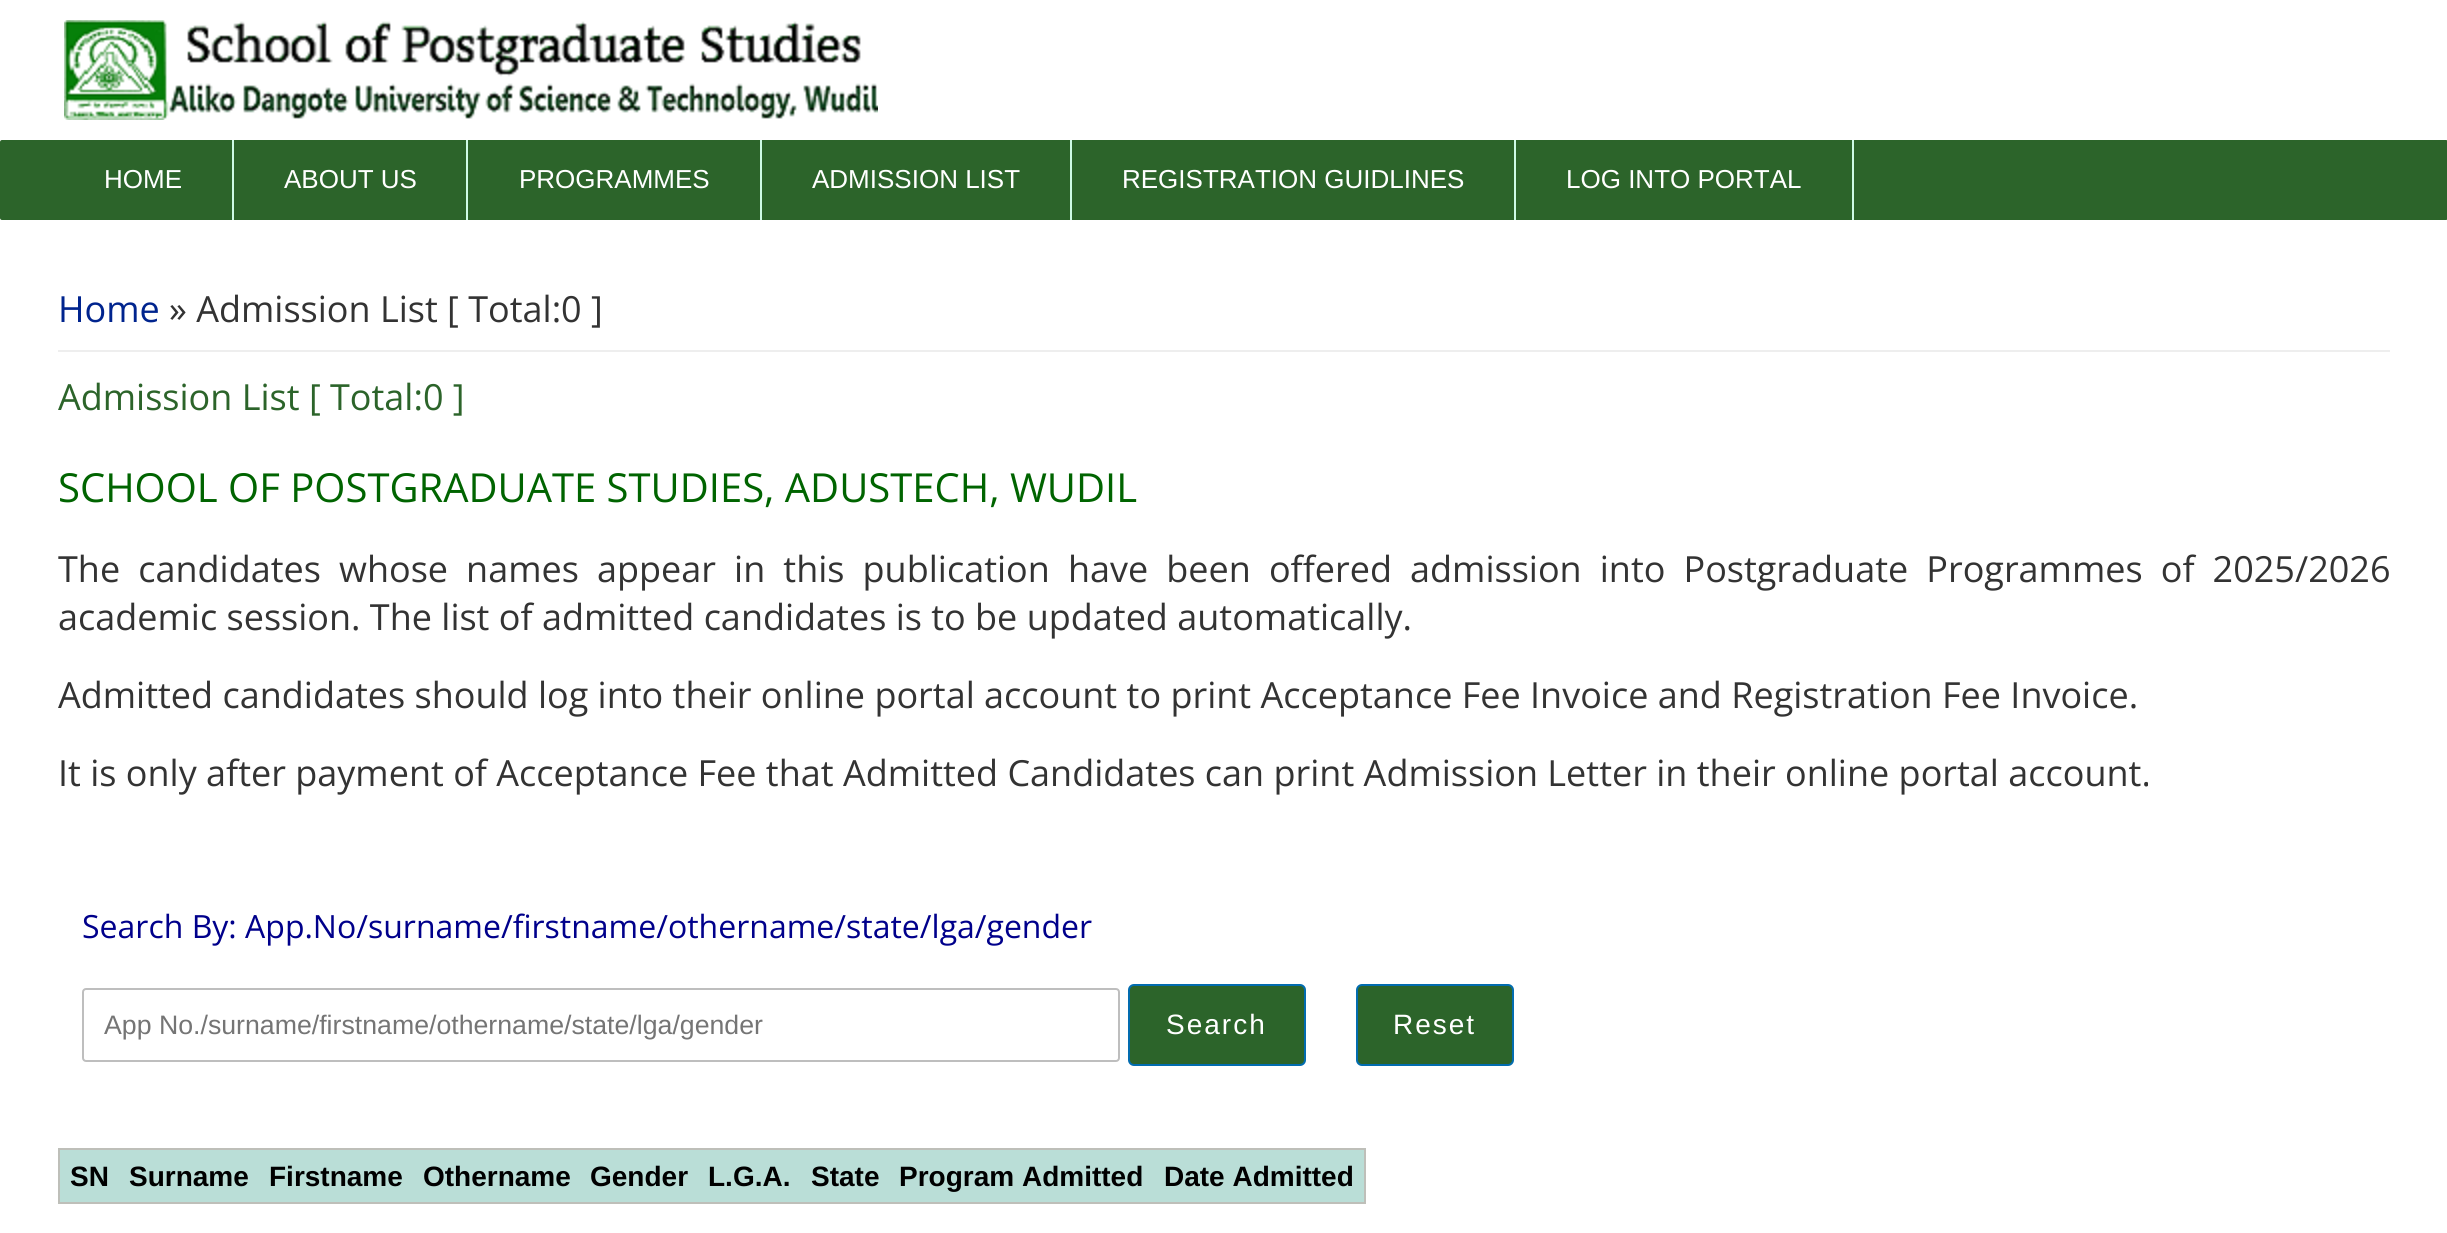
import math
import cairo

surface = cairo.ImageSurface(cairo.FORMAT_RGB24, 2447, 1233)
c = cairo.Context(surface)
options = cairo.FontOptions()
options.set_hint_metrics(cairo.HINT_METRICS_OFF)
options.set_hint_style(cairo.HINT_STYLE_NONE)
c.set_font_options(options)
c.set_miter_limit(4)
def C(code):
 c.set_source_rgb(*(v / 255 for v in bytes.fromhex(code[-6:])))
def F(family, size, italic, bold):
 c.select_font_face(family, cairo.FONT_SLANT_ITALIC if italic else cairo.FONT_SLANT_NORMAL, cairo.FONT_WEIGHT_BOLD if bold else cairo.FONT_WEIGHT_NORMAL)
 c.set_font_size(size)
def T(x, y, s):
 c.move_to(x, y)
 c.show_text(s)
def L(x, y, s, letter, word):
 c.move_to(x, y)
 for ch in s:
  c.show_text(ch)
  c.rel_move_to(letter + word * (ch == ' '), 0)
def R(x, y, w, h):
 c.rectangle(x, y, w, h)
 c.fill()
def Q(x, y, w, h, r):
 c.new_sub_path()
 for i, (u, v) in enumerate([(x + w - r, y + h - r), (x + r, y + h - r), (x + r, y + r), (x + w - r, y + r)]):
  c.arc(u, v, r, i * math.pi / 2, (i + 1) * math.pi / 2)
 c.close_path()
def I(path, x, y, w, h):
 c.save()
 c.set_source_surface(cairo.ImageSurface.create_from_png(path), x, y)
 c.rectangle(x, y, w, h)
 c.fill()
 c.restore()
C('ffffff')
c.paint()
I('1.png',64,20,814,100)
C('2c642a')
Q(0,140,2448,80,2)
c.fill()
C('cefbe5')
R(232,140,2,80)
F('Liberation Sans',26,0,0)
C('ffffff')
T(104,188,'HOME')
C('cefbe5')
R(466,140,2,80)
C('ffffff')
T(284,188,'ABOUT US')
C('cefbe5')
R(760,140,2,80)
C('ffffff')
T(519,188,'PROGRAMMES')
C('cefbe5')
R(1070,140,2,80)
C('ffffff')
T(812,188,'ADMISSION LIST')
C('cefbe5')
R(1514,140,2,80)
C('ffffff')
T(1122,188,'REGISTRATION GUIDLINES')
C('cefbe5')
R(1852,140,2,80)
C('ffffff')
T(1566,188,'LOG INTO PORTAL')
C('eeeeee')
R(58,350,2332,2)
F('Open Sans',36,0,0)
C('00248e')
T(58,322,'Home')
C('333333')
T(169,322,'» Admission List [ Total:0 ]')
C('2c642a')
T(58,410,'Admission List [ Total:0 ]')
F('Open Sans',40,0,0)
C('006400')
T(58,502,'SCHOOL OF POSTGRADUATE STUDIES, ADUSTECH, WUDIL')
F('Open Sans',36,0,0)
C('333333')
L(58,582,'The candidates whose names appear in this publication have been offered admission into Postgraduate Programmes of 2025/2026',0,8.75)
T(58,630,'academic session. The list of admitted candidates is to be updated automatically.')
T(58,708,'Admitted candidates should log into their online portal account to print Acceptance Fee Invoice and Registration Fee Invoice.')
T(58,786,'It is only after payment of Acceptance Fee that Admitted Candidates can print Admission Letter in their online portal account.')
F('Open Sans',32,0,0)
C('00008b')
T(82,938,'Search By: App.No/surname/firstname/othername/state/lga/gender')
Q(83,989,1036,72,3)
C('bebebe')
c.stroke()
F('Liberation Sans',26.7,0,0)
C('757575')
T(104,1034,'App No./surname/firstname/othername/state/lga/gender')
C('2c642a')
Q(1129,985,176,80,5)
c.fill_preserve()
C('026caf')
c.stroke()
F('Liberation Sans',28,0,0)
C('ffffff')
L(1166,1034,'Search',2,0)
C('2c642a')
Q(1357,985,156,80,5)
c.fill_preserve()
C('026caf')
c.stroke()
C('ffffff')
L(1393,1034,'Reset',2,0)
C('bebfb9')
R(58,1148,1308,2)
R(1364,1148,2,56)
R(58,1202,1308,2)
R(58,1148,2,56)
C('baded7')
R(60,1150,1304,52)
F('Liberation Sans',28,0,1)
C('000000')
T(70,1186,'SN')
T(129,1186,'Surname')
T(269,1186,'Firstname')
T(423,1186,'Othername')
T(590,1186,'Gender')
T(708,1186,'L.G.A.')
T(811,1186,'State')
T(899,1186,'Program Admitted')
T(1164,1186,'Date Admitted')
surface.write_to_png('o.png')
